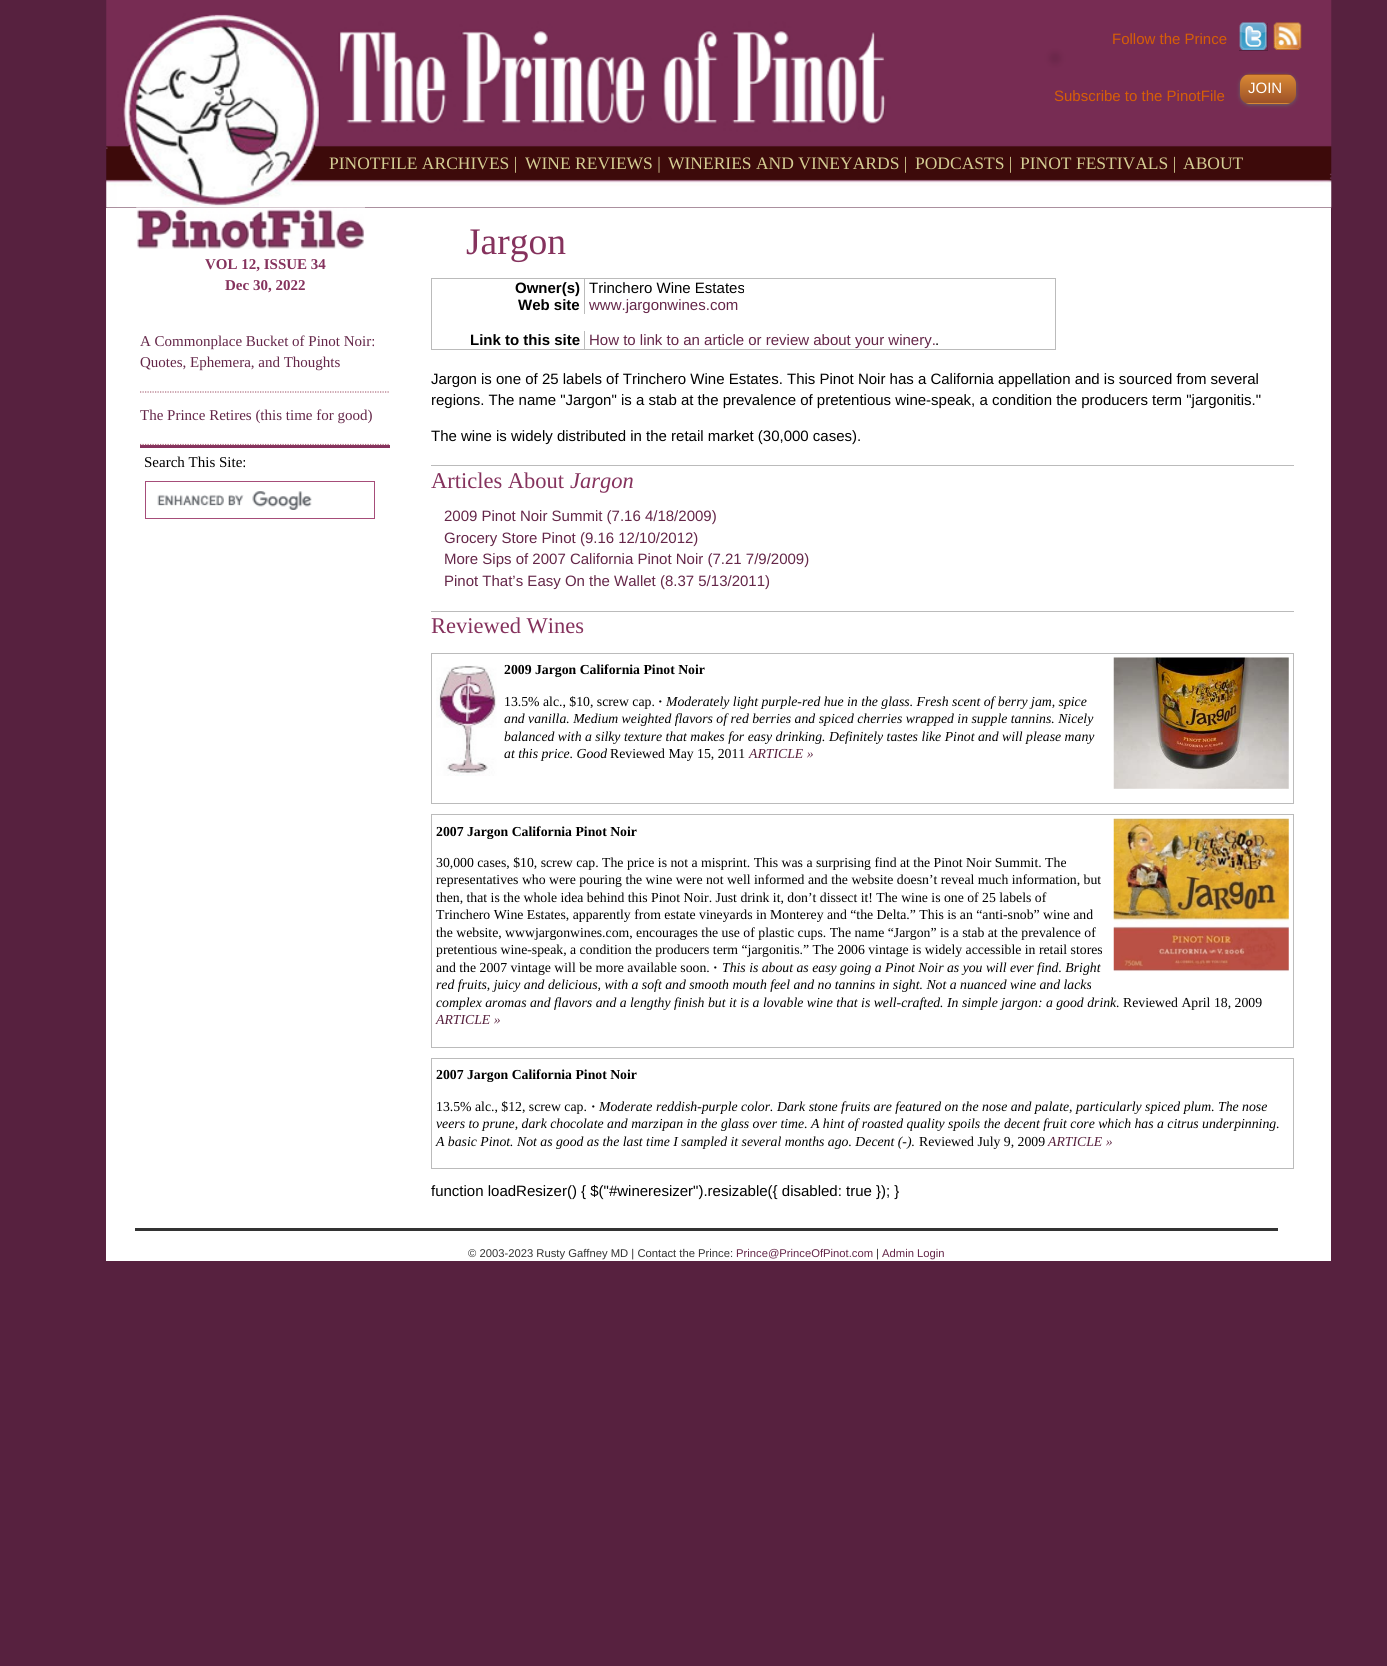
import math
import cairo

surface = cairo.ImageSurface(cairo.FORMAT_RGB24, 1387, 1666)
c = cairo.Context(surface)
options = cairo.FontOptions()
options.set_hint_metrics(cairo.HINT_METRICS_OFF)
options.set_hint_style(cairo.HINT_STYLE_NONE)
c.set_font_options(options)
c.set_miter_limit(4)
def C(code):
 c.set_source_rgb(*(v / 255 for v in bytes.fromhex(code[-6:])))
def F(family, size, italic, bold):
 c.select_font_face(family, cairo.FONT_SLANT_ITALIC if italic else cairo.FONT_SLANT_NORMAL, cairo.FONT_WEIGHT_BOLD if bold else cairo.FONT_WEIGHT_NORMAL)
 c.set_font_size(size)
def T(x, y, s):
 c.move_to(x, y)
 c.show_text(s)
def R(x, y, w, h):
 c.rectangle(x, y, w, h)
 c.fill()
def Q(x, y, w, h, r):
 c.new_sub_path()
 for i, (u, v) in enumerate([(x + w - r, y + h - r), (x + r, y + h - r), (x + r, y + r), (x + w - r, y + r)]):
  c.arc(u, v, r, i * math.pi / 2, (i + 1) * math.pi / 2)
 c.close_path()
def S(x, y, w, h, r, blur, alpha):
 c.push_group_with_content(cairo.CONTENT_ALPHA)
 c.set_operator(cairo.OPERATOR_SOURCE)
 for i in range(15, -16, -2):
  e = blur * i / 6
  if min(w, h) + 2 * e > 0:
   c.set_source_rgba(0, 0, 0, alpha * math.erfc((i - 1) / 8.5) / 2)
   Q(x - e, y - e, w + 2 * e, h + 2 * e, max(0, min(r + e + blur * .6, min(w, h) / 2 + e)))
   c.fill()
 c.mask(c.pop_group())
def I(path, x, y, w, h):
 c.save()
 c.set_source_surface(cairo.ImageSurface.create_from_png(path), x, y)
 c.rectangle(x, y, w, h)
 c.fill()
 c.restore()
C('57213f')
c.paint()
I('1.png',106,0,1226,208)
F('Liberation Sans',15,0,0)
C('d65e06')
T(1112,44,'Follow the Prince')
C('57213f')
R(1239,23,29,28)
I('2.png',1239,22,29,28)
I('3.png',1273,22,29,28)
C('666666')
S(1240,75,56,30,10,2,1)
c.save()
Q(1240,74,56,30,10)
c.clip()
gradient = cairo.LinearGradient(1268,48,1268,75)
gradient.add_color_stop_rgba(0,0.851,0.537,0.204,1)
gradient.add_color_stop_rgba(1,0.612,0.318,0.157,1)
c.set_source(gradient)
R(1240,74,56,1)
gradient = cairo.LinearGradient(1268,75,1268,103)
gradient.add_color_stop_rgba(0,0.851,0.537,0.204,1)
gradient.add_color_stop_rgba(1,0.612,0.318,0.157,1)
c.set_source(gradient)
R(1240,75,56,28)
gradient = cairo.LinearGradient(1268,103,1268,130)
gradient.add_color_stop_rgba(0,0.851,0.537,0.204,1)
gradient.add_color_stop_rgba(1,0.612,0.318,0.157,1)
c.set_source(gradient)
R(1240,103,56,1)
c.restore()
C('ffffff')
T(1248,93,'JOIN')
C('d65e06')
T(1054,101,'Subscribe to the PinotFile')
F('Liberation Serif',17.5,0,0)
C('d5cd93')
T(329,169,'PINOTFILE ARCHIVES |')
T(525,169,'WINE REVIEWS |')
T(668,169,'WINERIES AND VINEYARDS |')
T(915,169,'PODCASTS |')
T(1020,169,'PINOT FESTIVALS |')
T(1183,169,'ABOUT')
C('ffffff')
R(106,208,1225,1053)
I('4.png',136,207,229,42)
C('85325d')
R(140,445,250,3)
F('Liberation Serif',15,0,1)
T(205,269,'VOL 12, ISSUE 34')
T(225,290,'Dec 30, 2022')
c.new_path()
c.move_to(140,392)
c.line_to(390,392)
C('ae6e7e')
c.set_line_width(1.2)
c.set_dash([1.25,1.25])
c.stroke()
F('Liberation Serif',15,0,0)
C('642648')
T(140,346,'A Commonplace Bucket of Pinot Noir:')
T(140,367,'Quotes, Ephemera, and Thoughts')
c.new_path()
c.move_to(140,444.5)
c.line_to(390,444.5)
C('ae6e7e')
c.stroke()
C('642648')
T(140,420,'The Prince Retires (this time for good)')
C('000000')
T(144,467,'Search This Site:')
c.rectangle(145.5,481.5,229,37)
C('a64d79')
c.set_line_width(1)
c.set_dash([])
c.stroke()
I('5.png',157,491,155,19)
F('Liberation Serif',37.5,0,0)
C('85325d')
T(466,254,'Jargon')
c.rectangle(431.5,278.5,624,71)
C('bbbbbb')
c.stroke()
R(584,279,1,35)
F('Liberation Sans',15,0,1)
C('000000')
T(515,293,'Owner(s)')
F('Liberation Sans',15,0,0)
T(589,293,'Trinchero Wine Estates')
F('Liberation Sans',15,0,1)
T(518,310,'Web site')
F('Liberation Sans',15,0,0)
C('642648')
T(589,310,'www.jargonwines.com')
C('bbbbbb')
R(584,331,1,18)
F('Liberation Sans',15,0,1)
C('000000')
T(470,345,'Link to this site')
F('Liberation Sans',15,0,0)
C('642648')
T(589,345,'How to link to an article or review about your winery.')
C('000000')
T(935,345,'.')
T(431,384,'Jargon is one of 25 labels of Trinchero Wine Estates. This Pinot Noir has a California appellation and is sourced from several')
T(431,405,'regions. The name "Jargon" is a stab at the prevalence of pretentious wine-speak, a condition the producers term "jargonitis."')
T(431,441,'The wine is widely distributed in the retail market (30,000 cases).')
C('bbbbbb')
R(431,465,863,1)
F('Liberation Serif',22.5,0,0)
C('85325d')
T(431,488,'Articles About')
F('Liberation Serif',22.5,1,0)
T(570,488,'Jargon')
F('Liberation Sans',15,0,0)
C('642648')
T(444,521,'2009 Pinot Noir Summit (7.16 4/18/2009)')
T(444,543,'Grocery Store Pinot (9.16 12/10/2012)')
T(444,564,'More Sips of 2007 California Pinot Noir (7.21 7/9/2009)')
T(444,586,'Pinot That’s Easy On the Wallet (8.37 5/13/2011)')
C('bbbbbb')
R(431,611,863,1)
F('Liberation Serif',22.5,0,0)
C('85325d')
T(431,633,'Reviewed Wines')
c.rectangle(431.5,653.5,862,150)
C('bbbbbb')
c.stroke()
I('6.png',436,665,61,111)
F('Liberation Serif',13.75,0,1)
C('000000')
T(504,674,'2009 Jargon California Pinot Noir')
I('7.png',1113,657,176,132)
F('Liberation Serif',13.75,0,0)
T(504,706,'13.5% alc., $10, screw cap.')
F('Liberation Serif',13.75,0,1)
T(658,706,'·')
F('Liberation Serif',13.75,1,0)
T(666,706,'Moderately light purple-red hue in the glass. Fresh scent of berry jam, spice')
T(504,723,'and vanilla. Medium weighted flavors of red berries and spiced cherries wrapped in supple tannins. Nicely')
T(504,741,'balanced with a silky texture that makes for easy drinking. Definitely tastes like Pinot and will please many')
T(504,758,'at this price. Good')
F('Liberation Serif',13.75,0,0)
T(610,758,'Reviewed May 15, 2011')
F('Liberation Serif',13.75,1,0)
C('57203d')
T(749,758,'ARTICLE »')
c.rectangle(431.5,814.5,862,233)
C('bbbbbb')
c.stroke()
F('Liberation Serif',13.75,0,1)
C('000000')
T(436,836,'2007 Jargon California Pinot Noir')
I('8.png',1113,818,176,154)
F('Liberation Serif',13.75,0,0)
T(436,867,'30,000 cases, $10, screw cap. The price is not a misprint. This was a surprising find at the Pinot Noir Summit. The')
T(436,884,'representatives who were pouring the wine were not well informed and the website doesn’t reveal much information, but')
T(436,902,'then, that is the whole idea behind this Pinot Noir. Just drink it, don’t dissect it! The wine is one of 25 labels of')
T(436,919,'Trinchero Wine Estates, apparently from estate vineyards in Monterey and “the Delta.” This is an “anti-snob” wine and')
T(436,937,'the website, wwwjargonwines.com, encourages the use of plastic cups. The name “Jargon” is a stab at the prevalence of')
T(436,954,'pretentious wine-speak, a condition the producers term “jargonitis.” The 2006 vintage is widely accessible in retail stores')
T(436,972,'and the 2007 vintage will be more available soon.')
F('Liberation Serif',13.75,0,1)
T(713,972,'·')
F('Liberation Serif',13.75,1,0)
T(722,972,'This is about as easy going a Pinot Noir as you will ever find. Bright')
T(436,989,'red fruits, juicy and delicious, with a soft and smooth mouth feel and no tannins in sight. Not a nuanced wine and lacks')
T(436,1007,'complex aromas and flavors and a lengthy finish but it is a lovable wine that is well-crafted. In simple jargon: a good drink.')
F('Liberation Serif',13.75,0,0)
T(1123,1007,'Reviewed April 18, 2009')
F('Liberation Serif',13.75,1,0)
C('57203d')
T(436,1024,'ARTICLE »')
c.rectangle(431.5,1058.5,862,110)
C('bbbbbb')
c.stroke()
F('Liberation Serif',13.75,0,1)
C('000000')
T(436,1079,'2007 Jargon California Pinot Noir')
F('Liberation Serif',13.75,0,0)
T(436,1111,'13.5% alc., $12, screw cap.')
F('Liberation Serif',13.75,0,1)
T(591,1111,'·')
F('Liberation Serif',13.75,1,0)
T(599,1111,'Moderate reddish-purple color. Dark stone fruits are featured on the nose and palate, particularly spiced plum. The nose')
T(436,1128,'veers to prune, dark chocolate and marzipan in the glass over time. A hint of roasted quality spoils the decent fruit core which has a citrus underpinning.')
T(436,1146,'A basic Pinot. Not as good as the last time I sampled it several months ago. Decent (-).')
F('Liberation Serif',13.75,0,0)
T(919,1146,'Reviewed July 9, 2009')
F('Liberation Serif',13.75,1,0)
C('57203d')
T(1048,1146,'ARTICLE »')
F('Liberation Sans',15,0,0)
C('000000')
T(431,1196,'function loadResizer() { $("#wineresizer").resizable({ disabled: true }); }')
C('333333')
R(135,1228,1143,3)
F('Liberation Sans',11.25,0,0)
T(468,1257,'© 2003-2023 Rusty Gaffney MD | Contact the Prince:')
C('642648')
T(736,1257,'Prince@PrinceOfPinot.com')
C('333333')
T(876,1257,'|')
C('642648')
T(882,1257,'Admin Login')
surface.write_to_png('o.png')
